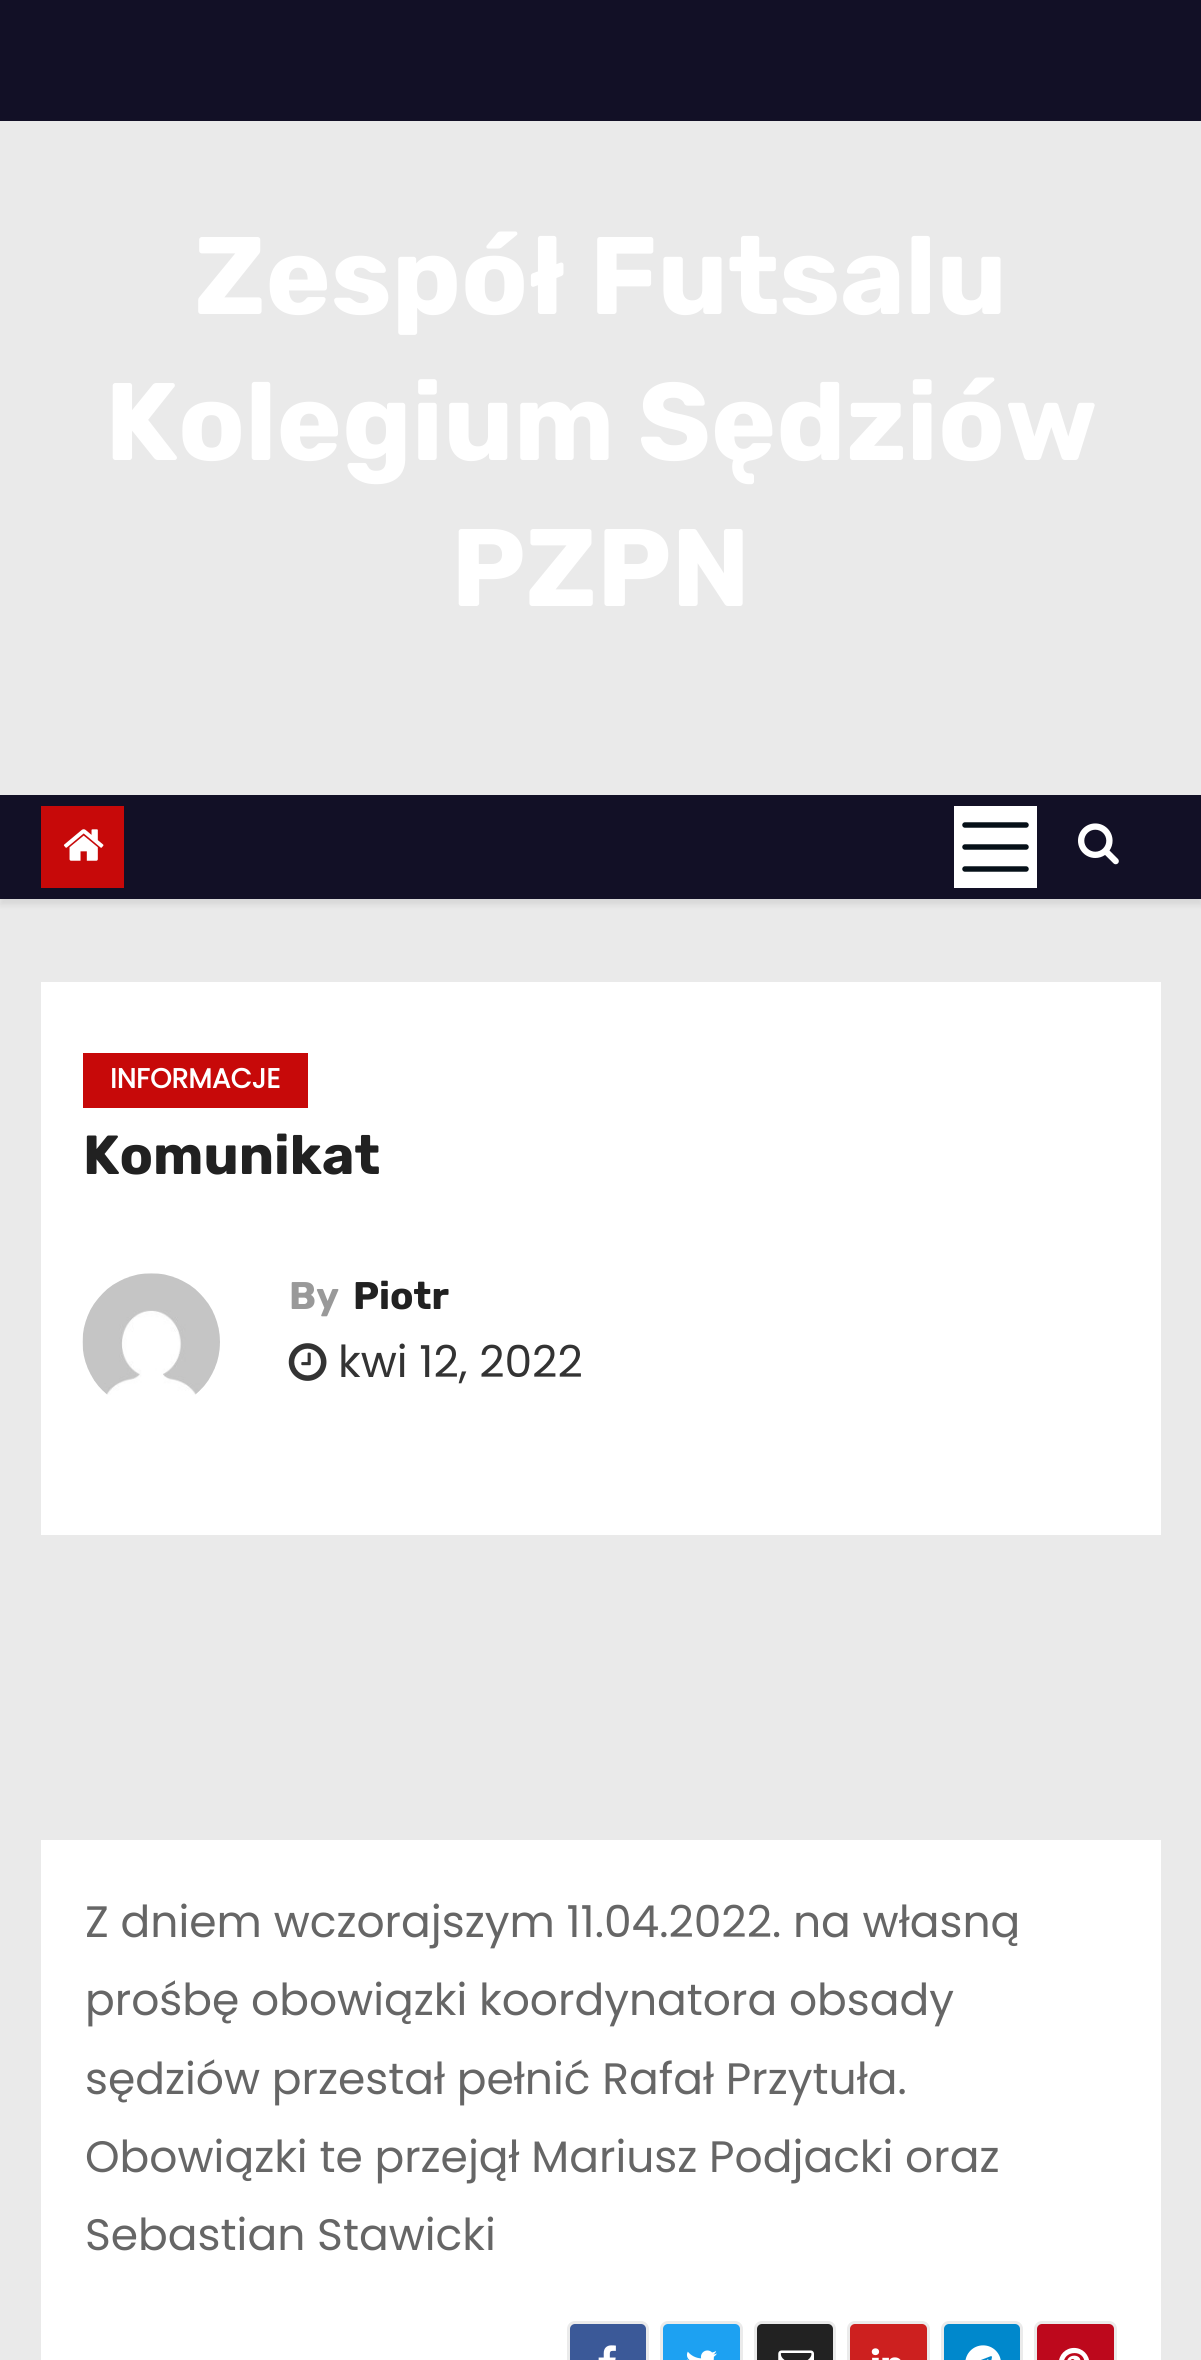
import math
import cairo

surface = cairo.ImageSurface(cairo.FORMAT_RGB24, 1201, 2360)
c = cairo.Context(surface)
options = cairo.FontOptions()
options.set_hint_metrics(cairo.HINT_METRICS_OFF)
options.set_hint_style(cairo.HINT_STYLE_NONE)
c.set_font_options(options)
c.set_miter_limit(4)
def C(code):
 c.set_source_rgb(*(v / 255 for v in bytes.fromhex(code[-6:])))
def F(family, size, italic, bold):
 c.select_font_face(family, cairo.FONT_SLANT_ITALIC if italic else cairo.FONT_SLANT_NORMAL, cairo.FONT_WEIGHT_BOLD if bold else cairo.FONT_WEIGHT_NORMAL)
 c.set_font_size(size)
def T(x, y, s):
 c.move_to(x, y)
 c.show_text(s)
def R(x, y, w, h):
 c.rectangle(x, y, w, h)
 c.fill()
def Q(x, y, w, h, r):
 c.new_sub_path()
 for i, (u, v) in enumerate([(x + w - r, y + h - r), (x + r, y + h - r), (x + r, y + r), (x + w - r, y + r)]):
  c.arc(u, v, r, i * math.pi / 2, (i + 1) * math.pi / 2)
 c.close_path()
def S(x, y, w, h, r, blur, alpha):
 c.push_group_with_content(cairo.CONTENT_ALPHA)
 c.set_operator(cairo.OPERATOR_SOURCE)
 for i in range(15, -16, -2):
  e = blur * i / 6
  if min(w, h) + 2 * e > 0:
   c.set_source_rgba(0, 0, 0, alpha * math.erfc((i - 1) / 8.5) / 2)
   Q(x - e, y - e, w + 2 * e, h + 2 * e, max(0, min(r + e + blur * .6, min(w, h) / 2 + e)))
   c.fill()
 c.mask(c.pop_group())
def I(path, x, y, w, h):
 c.save()
 c.set_source_surface(cairo.ImageSurface.create_from_png(path), x, y)
 c.rectangle(x, y, w, h)
 c.fill()
 c.restore()
C('eaeaea')
c.paint()
C('121026')
R(0,0,1201,121)
F('Rubik',110,0,1)
C('ffffff')
T(194,314,'Zespół Futsalu')
T(105,460,'Kolegium Sędziów')
T(451,606,'PZPN')
C('000000')
S(0,800,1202,105,0,3,.08)
C('121026')
R(0,795,1201,104)
C('c70909')
R(41,806,83,82)
I('1.png',63,829,41,32)
C('ffffff')
R(954,806,83,82)
c.new_path()
c.move_to(965,825)
c.line_to(1026,825)
c.move_to(965,847)
c.line_to(1026,847)
c.move_to(965,869)
c.line_to(1026,869)
C('061018')
c.set_line_width(5.5)
c.set_line_cap(cairo.LINE_CAP_ROUND)
c.stroke()
I('2.png',1078,823,41,42)
C('ffffff')
R(41,982,1120,553)
C('c70909')
R(83,1053,225,55)
F('Poppins',27.5,0,1)
C('ffffff')
T(110,1088,'INFORMACJE')
F('Rubik',55,0,1)
C('212121')
T(83,1174,'Komunikat')
I('3.png',82,1273,138,122)
F('Rubik',38.5,0,1)
C('999999')
T(289,1309,'By')
C('212121')
T(353,1309,'Piotr')
I('4.png',288,1343,39,38)
F('Poppins',44,0,0)
C('333333')
T(338,1377,'kwi 12, 2022')
C('ffffff')
R(41,1840,1120,520)
C('666666')
T(85,1937,'Z dniem wczorajszym 11.04.2022. na własną')
T(85,2015,'prośbę obowiązki koordynatora obsady')
T(85,2094,'sędziów przestał pełnić Rafał Przytuła.')
T(85,2172,'Obowiązki te przejął Mariusz Podjacki oraz')
T(85,2250,'Sebastian Stawicki')
C('3b5998')
Q(568.5,2322.5,79,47,6.5)
c.fill_preserve()
C('ebebeb')
c.set_line_width(3)
c.set_line_cap(cairo.LINE_CAP_BUTT)
c.stroke()
I('5.png',598,2345,18,15)
C('1da1f2')
Q(661.5,2322.5,80,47,6.5)
c.fill_preserve()
C('ebebeb')
c.stroke()
I('6.png',686,2350,31,10)
C('222222')
Q(755.5,2322.5,79,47,6.5)
c.fill_preserve()
C('ebebeb')
c.stroke()
I('7.png',778,2350,36,10)
C('cd201f')
Q(848.5,2322.5,80,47,6.5)
c.fill_preserve()
C('ebebeb')
c.stroke()
I('8.png',871,2348,30,12)
C('0088cc')
Q(942.5,2322.5,79,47,6.5)
c.fill_preserve()
C('ebebeb')
c.stroke()
I('9.png',965,2345,36,15)
C('bd081c')
Q(1035.5,2322.5,80,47,6.5)
c.fill_preserve()
C('ebebeb')
c.stroke()
I('10.png',1059,2347,30,13)
surface.write_to_png('o.png')
